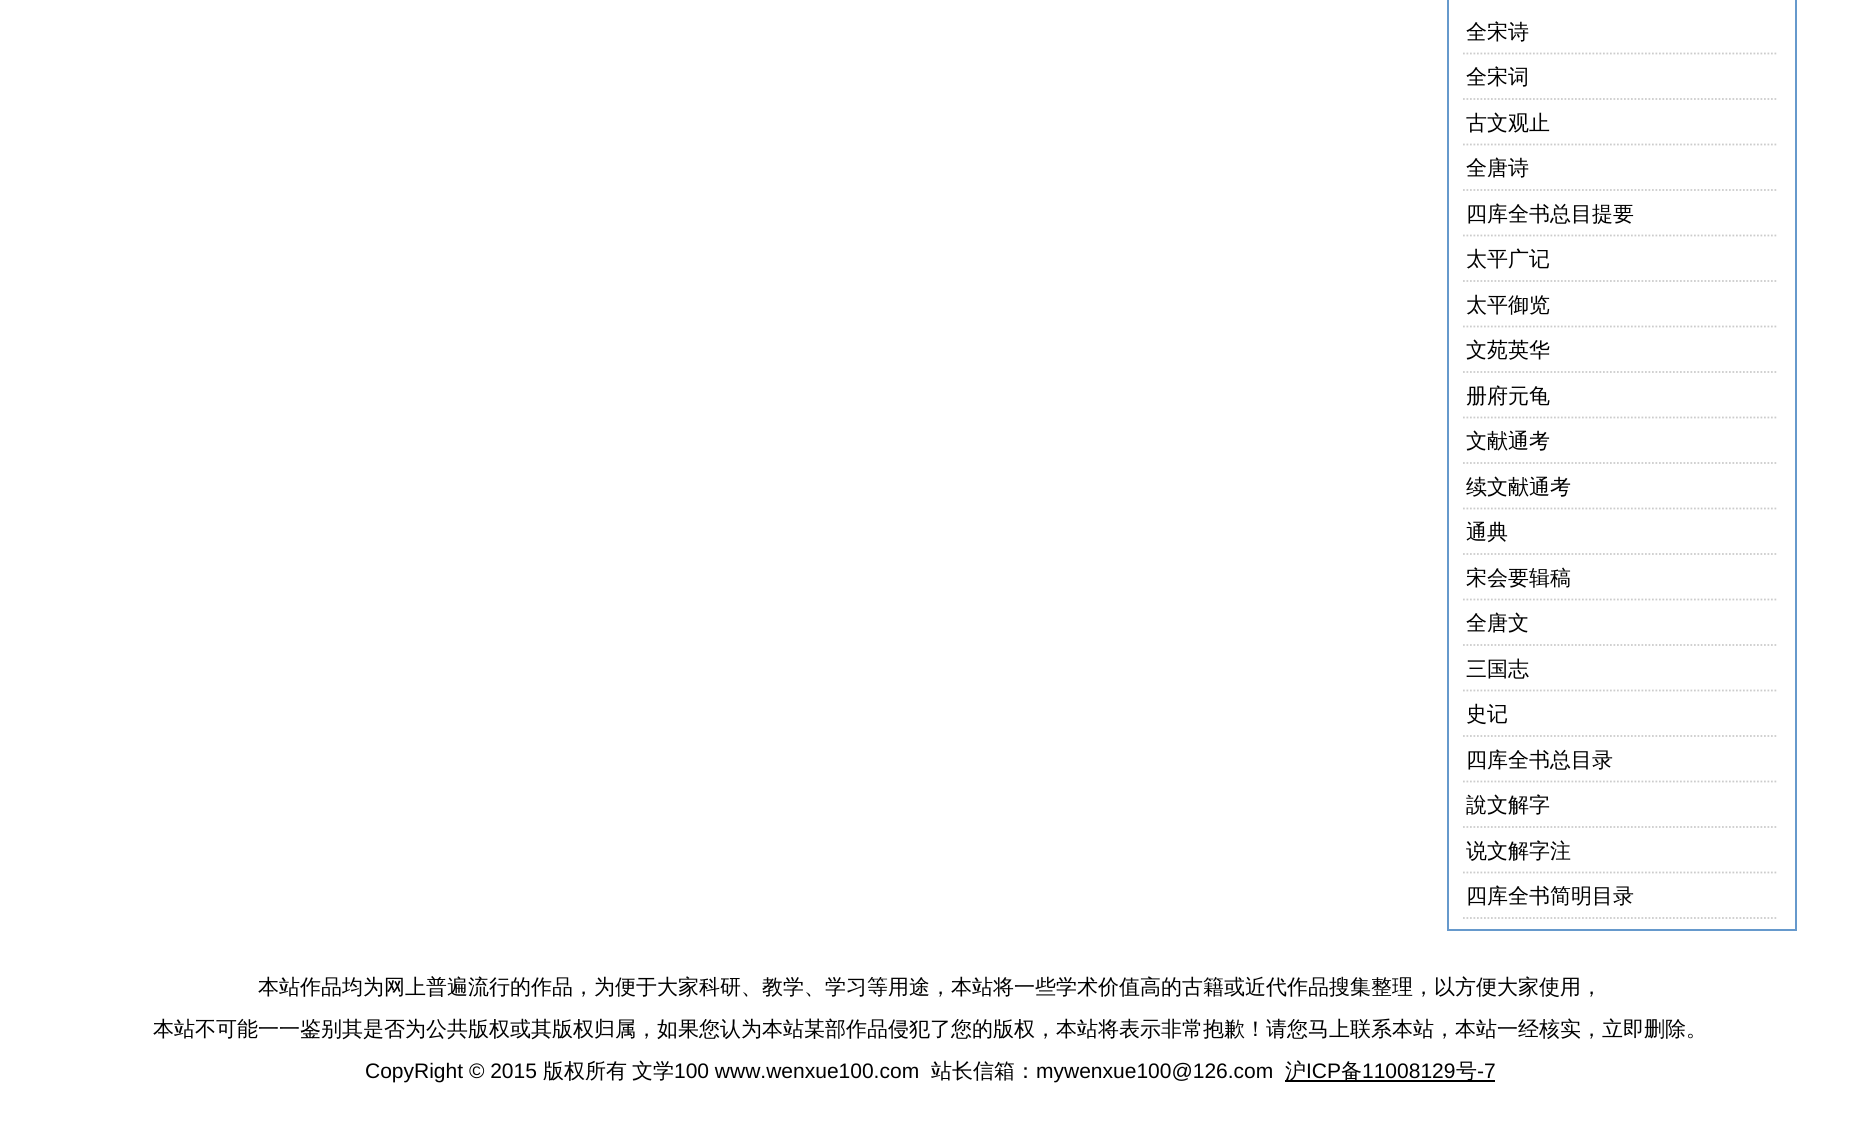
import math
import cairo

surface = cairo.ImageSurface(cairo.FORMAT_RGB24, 1859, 1124)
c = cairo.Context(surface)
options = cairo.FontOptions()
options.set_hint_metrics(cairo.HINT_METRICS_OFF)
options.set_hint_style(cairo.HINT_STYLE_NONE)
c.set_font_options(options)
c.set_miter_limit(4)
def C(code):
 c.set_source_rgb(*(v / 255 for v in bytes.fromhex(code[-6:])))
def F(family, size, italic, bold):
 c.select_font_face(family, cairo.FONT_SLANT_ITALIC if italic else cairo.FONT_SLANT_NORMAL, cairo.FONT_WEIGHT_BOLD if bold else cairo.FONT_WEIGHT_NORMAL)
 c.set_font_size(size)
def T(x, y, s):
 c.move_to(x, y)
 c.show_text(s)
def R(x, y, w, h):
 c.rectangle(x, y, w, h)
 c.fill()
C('ffffff')
c.paint()
c.rectangle(1448,-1,348,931)
C('6699cc')
c.stroke()
c.new_path()
c.move_to(1463,53.5)
c.line_to(1778,53.5)
C('cccccc')
c.set_line_width(1.8)
c.set_dash([1.75,1.75])
c.stroke()
F('WenQuanYi Zen Hei Medium',21,0,0)
C('000000')
T(1466,39,'全宋诗')
c.new_path()
c.move_to(1463,99)
c.line_to(1778,99)
C('cccccc')
c.stroke()
C('000000')
T(1466,84,'全宋词')
c.new_path()
c.move_to(1463,144.5)
c.line_to(1778,144.5)
C('cccccc')
c.stroke()
C('000000')
T(1466,130,'古文观止')
c.new_path()
c.move_to(1463,190)
c.line_to(1778,190)
C('cccccc')
c.stroke()
C('000000')
T(1466,175,'全唐诗')
c.new_path()
c.move_to(1463,235.5)
c.line_to(1778,235.5)
C('cccccc')
c.stroke()
C('000000')
T(1466,221,'四库全书总目提要')
c.new_path()
c.move_to(1463,281)
c.line_to(1778,281)
C('cccccc')
c.stroke()
C('000000')
T(1466,266,'太平广记')
c.new_path()
c.move_to(1463,326.5)
c.line_to(1778,326.5)
C('cccccc')
c.stroke()
C('000000')
T(1466,312,'太平御览')
c.new_path()
c.move_to(1463,372)
c.line_to(1778,372)
C('cccccc')
c.stroke()
C('000000')
T(1466,357,'文苑英华')
c.new_path()
c.move_to(1463,417.5)
c.line_to(1778,417.5)
C('cccccc')
c.stroke()
C('000000')
T(1466,403,'册府元龟')
c.new_path()
c.move_to(1463,463)
c.line_to(1778,463)
C('cccccc')
c.stroke()
C('000000')
T(1466,448,'文献通考')
c.new_path()
c.move_to(1463,508.5)
c.line_to(1778,508.5)
C('cccccc')
c.stroke()
C('000000')
T(1466,494,'续文献通考')
c.new_path()
c.move_to(1463,554)
c.line_to(1778,554)
C('cccccc')
c.stroke()
C('000000')
T(1466,539,'通典')
c.new_path()
c.move_to(1463,599.5)
c.line_to(1778,599.5)
C('cccccc')
c.stroke()
C('000000')
T(1466,585,'宋会要辑稿')
c.new_path()
c.move_to(1463,645)
c.line_to(1778,645)
C('cccccc')
c.stroke()
C('000000')
T(1466,630,'全唐文')
c.new_path()
c.move_to(1463,690.5)
c.line_to(1778,690.5)
C('cccccc')
c.stroke()
C('000000')
T(1466,676,'三国志')
c.new_path()
c.move_to(1463,736)
c.line_to(1778,736)
C('cccccc')
c.stroke()
C('000000')
T(1466,721,'史记')
c.new_path()
c.move_to(1463,781.5)
c.line_to(1778,781.5)
C('cccccc')
c.stroke()
C('000000')
T(1466,767,'四库全书总目录')
c.new_path()
c.move_to(1463,827)
c.line_to(1778,827)
C('cccccc')
c.stroke()
C('000000')
T(1466,812,'說文解字')
c.new_path()
c.move_to(1463,872.5)
c.line_to(1778,872.5)
C('cccccc')
c.stroke()
C('000000')
T(1466,858,'说文解字注')
c.new_path()
c.move_to(1463,918)
c.line_to(1778,918)
C('cccccc')
c.stroke()
C('000000')
T(1466,903,'四库全书简明目录')
T(258,994,'本站作品均为网上普遍流行的作品，为便于大家科研、教学、学习等用途，本站将一些学术价值高的古籍或近代作品搜集整理，以方便大家使用，')
T(153,1036,'本站不可能一一鉴别其是否为公共版权或其版权归属，如果您认为本站某部作品侵犯了您的版权，本站将表示非常抱歉！请您马上联系本站，本站一经核实，立即删除。')
F('Liberation Sans',21,0,0)
T(365,1078,'CopyRight © 2015')
F('WenQuanYi Zen Hei Medium',21,0,0)
T(543,1078,'版权所有')
T(632,1078,'文学')
F('Liberation Sans',21,0,0)
T(674,1078,'100 www.wenxue100.com')
F('WenQuanYi Zen Hei Medium',21,0,0)
T(931,1078,'站长信箱：')
F('Liberation Sans',21,0,0)
T(1036,1078,'mywenxue100@126.com')
R(1285,1080,210,2)
F('WenQuanYi Zen Hei Medium',21,0,0)
T(1285,1078,'沪')
F('Liberation Sans',21,0,0)
T(1306,1078,'ICP')
F('WenQuanYi Zen Hei Medium',21,0,0)
T(1341,1078,'备')
F('Liberation Sans',21,0,0)
T(1362,1078,'11008129')
F('WenQuanYi Zen Hei Medium',21,0,0)
T(1456,1078,'号')
F('Liberation Sans',21,0,0)
T(1477,1078,'-7')
surface.write_to_png('o.png')
